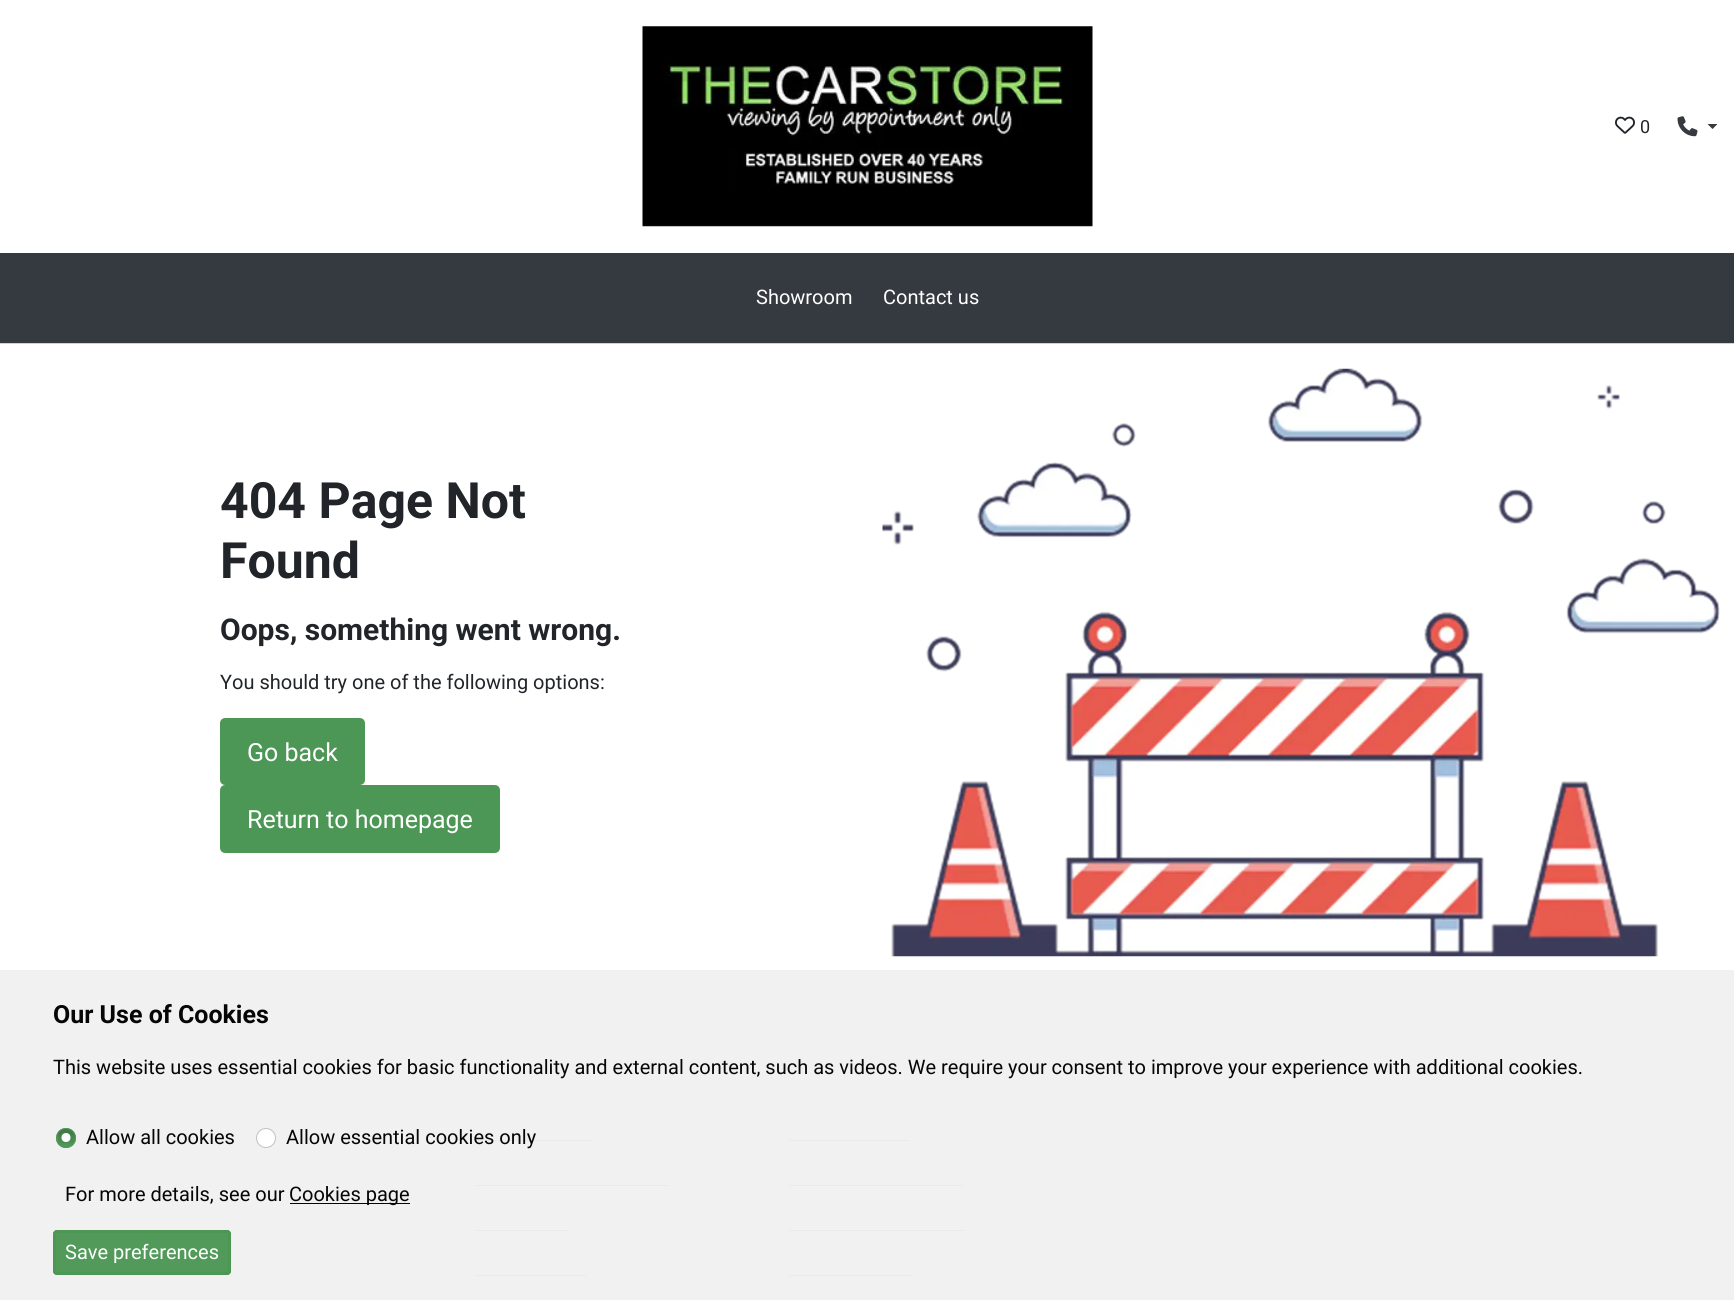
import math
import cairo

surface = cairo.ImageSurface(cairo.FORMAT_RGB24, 1734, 1300)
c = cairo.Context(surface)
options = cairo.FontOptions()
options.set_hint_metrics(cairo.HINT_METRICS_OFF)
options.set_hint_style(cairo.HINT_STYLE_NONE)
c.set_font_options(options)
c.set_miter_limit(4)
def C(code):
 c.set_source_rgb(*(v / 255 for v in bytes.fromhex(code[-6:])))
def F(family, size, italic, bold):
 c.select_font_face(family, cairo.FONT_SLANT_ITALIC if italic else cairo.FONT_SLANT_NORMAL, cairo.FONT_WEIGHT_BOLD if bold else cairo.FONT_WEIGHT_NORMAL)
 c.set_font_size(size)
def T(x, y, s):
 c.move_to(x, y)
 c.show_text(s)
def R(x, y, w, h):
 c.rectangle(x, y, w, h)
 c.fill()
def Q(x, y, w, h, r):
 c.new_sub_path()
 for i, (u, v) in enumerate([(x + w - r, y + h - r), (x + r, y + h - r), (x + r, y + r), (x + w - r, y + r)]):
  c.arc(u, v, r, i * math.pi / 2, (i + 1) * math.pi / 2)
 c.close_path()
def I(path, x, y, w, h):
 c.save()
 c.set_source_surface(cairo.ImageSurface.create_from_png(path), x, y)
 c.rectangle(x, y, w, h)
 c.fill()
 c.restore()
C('ffffff')
c.paint()
C('f1f1f1')
R(0,970,1734,330)
I('1.png',642,26,451,201)
I('2.png',1615,116,20,18)
F('Roboto',18,0,0)
C('212529')
T(1640,133,'0')
I('3.png',1677,116,21,21)
C('343a40')
c.new_path()
c.move_to(1707.5,124)
c.line_to(1717.5,124)
c.line_to(1712.5,129)
c.close_path()
c.fill()
R(0,253,1734,90)
F('Roboto',20,0,0)
C('ffffff')
T(756,304,'Showroom')
T(883,304,'Contact us')
C('d1d1d1')
R(0,343,1734,1)
F('Roboto',50,0,1)
C('212529')
T(220,518,'404 Page Not')
T(220,578,'Found')
F('Roboto',30,0,1)
T(220,640,'Oops, something went wrong.')
F('Roboto',20,0,0)
T(220,689,'You should try one of the following options:')
C('4c9755')
Q(221.5,719.5,142,64,3.5)
c.fill_preserve()
c.set_line_width(3)
c.stroke()
F('Roboto',25,0,0)
C('ffffff')
T(247,761,'Go back')
C('4c9755')
Q(221.5,786.5,277,65,3.5)
c.fill_preserve()
c.stroke()
C('ffffff')
T(247,828,'Return to homepage')
I('4.png',882,368,838,589)
F('Roboto',25,0,1)
C('060606')
T(53,1023,'Our Use of Cookies')
F('Roboto',20,0,0)
T(53,1074,'This website uses essential cookies for basic functionality and external content, such as videos. We require your consent to improve your experience with additional cookies.')
C('509959')
c.new_path()
c.arc(66,1138,10,0,2 * math.pi)
c.fill()
c.save()
Q(56,1128,20,20,10)
c.clip()
gradient = cairo.LinearGradient(66,1146,66,1129)
gradient.add_color_stop_rgba(0,0.024,0.024,0.024,0)
gradient.add_color_stop_rgba(.77,0.024,0.024,0.024,.2)
c.set_source(gradient)
R(58,1129,17,16)
c.restore()
C('ffffff')
c.arc(66,1137.5,4.5,0,2 * math.pi)
c.fill()
c.arc(66,1138,9.5,0,2 * math.pi)
C('509959')
c.set_line_width(1)
c.stroke()
C('060606')
T(86,1144,'Allow all cookies')
C('ffffff')
c.new_path()
c.arc(266,1138,10,0,2 * math.pi)
c.fill()
c.arc(266,1138,9.5,0,2 * math.pi)
c.set_source_rgba(0.024,0.024,0.024,0.25)
c.stroke()
C('eaeaea')
R(476,1140,115,1)
C('060606')
T(286,1144,'Allow essential cookies only')
T(65,1201,'For more details, see our')
R(290,1203,120,1)
T(289,1201,'Cookies page')
c.set_source_rgba(0.298,0.592,0.333,0.97)
Q(53,1230,178,45,4)
c.fill()
Q(54.5,1231.5,175,42,2.5)
c.set_line_width(3)
c.stroke()
C('ffffff')
T(65,1259,'Save preferences')
C('eaeaea')
R(476,1185,193,1)
R(476,1230,92,1)
R(476,1275,110,1)
R(789,1140,120,1)
R(789,1185,174,1)
R(789,1230,175,1)
R(789,1275,124,1)
surface.write_to_png('o.png')
